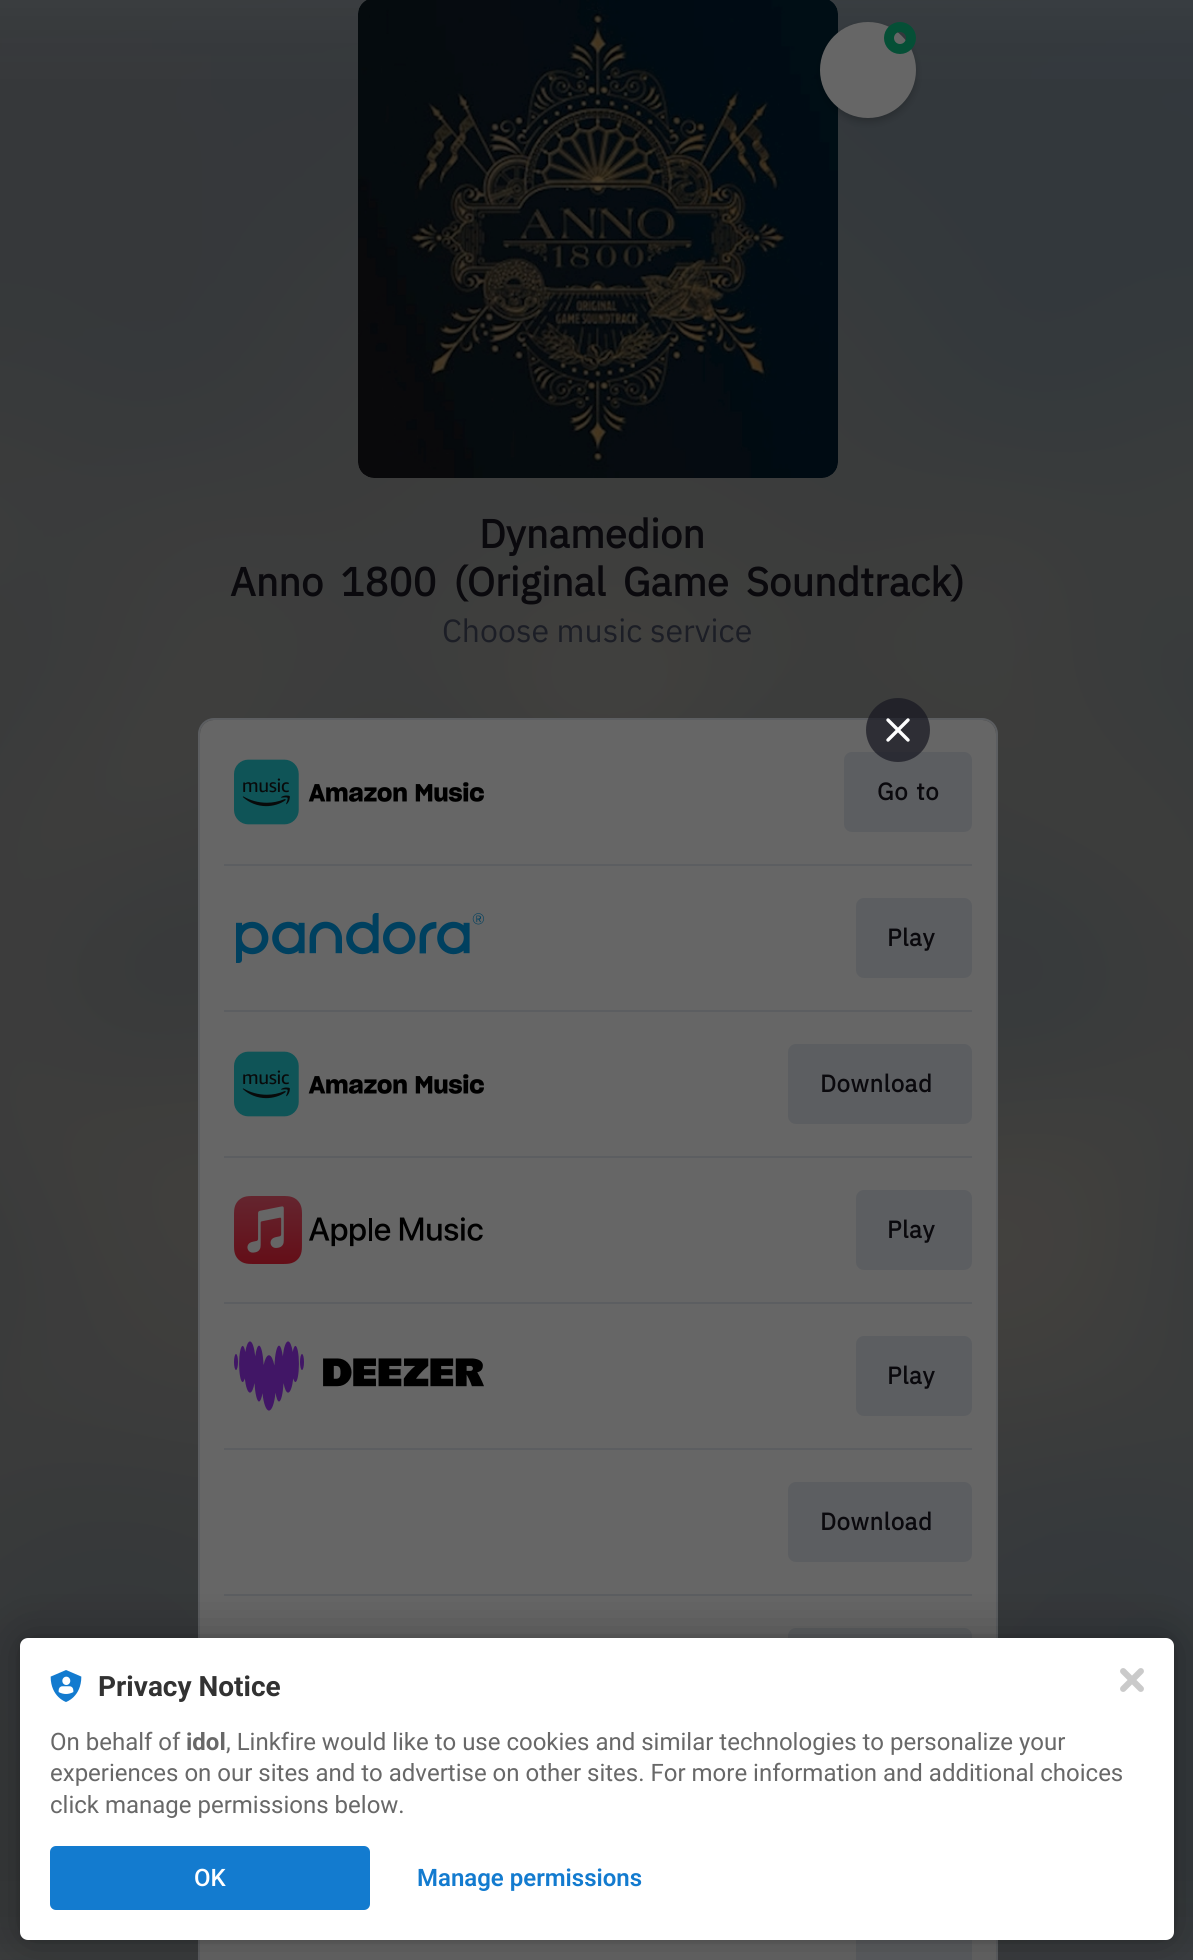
import math
import cairo

surface = cairo.ImageSurface(cairo.FORMAT_RGB24, 1193, 1960)
c = cairo.Context(surface)
options = cairo.FontOptions()
options.set_hint_metrics(cairo.HINT_METRICS_OFF)
options.set_hint_style(cairo.HINT_STYLE_NONE)
c.set_font_options(options)
c.set_miter_limit(4)
def C(code):
 c.set_source_rgb(*(v / 255 for v in bytes.fromhex(code[-6:])))
def F(family, size, italic, bold):
 c.select_font_face(family, cairo.FONT_SLANT_ITALIC if italic else cairo.FONT_SLANT_NORMAL, cairo.FONT_WEIGHT_BOLD if bold else cairo.FONT_WEIGHT_NORMAL)
 c.set_font_size(size)
def T(x, y, s):
 c.move_to(x, y)
 c.show_text(s)
def L(x, y, s, letter, word):
 c.move_to(x, y)
 for ch in s:
  c.show_text(ch)
  c.rel_move_to(letter + word * (ch == ' '), 0)
def R(x, y, w, h):
 c.rectangle(x, y, w, h)
 c.fill()
def Q(x, y, w, h, r):
 c.new_sub_path()
 for i, (u, v) in enumerate([(x + w - r, y + h - r), (x + r, y + h - r), (x + r, y + r), (x + w - r, y + r)]):
  c.arc(u, v, r, i * math.pi / 2, (i + 1) * math.pi / 2)
 c.close_path()
def S(x, y, w, h, r, blur, alpha):
 c.push_group_with_content(cairo.CONTENT_ALPHA)
 c.set_operator(cairo.OPERATOR_SOURCE)
 for i in range(15, -16, -2):
  e = blur * i / 6
  if min(w, h) + 2 * e > 0:
   c.set_source_rgba(0, 0, 0, alpha * math.erfc((i - 1) / 8.5) / 2)
   Q(x - e, y - e, w + 2 * e, h + 2 * e, max(0, min(r + e + blur * .6, min(w, h) / 2 + e)))
   c.fill()
 c.mask(c.pop_group())
def I(path, x, y, w, h):
 c.save()
 c.set_source_surface(cairo.ImageSurface.create_from_png(path), x, y)
 c.rectangle(x, y, w, h)
 c.fill()
 c.restore()
C('666666')
c.paint()
I('1.png',0,0,1193,1960)
I('2.png',358,0,480,478)
C('000000')
S(820,26,96,96,48,4,.2)
C('666666')
c.arc(868,70,48,0,2 * math.pi)
c.fill()
c.arc(900,38,11,0,2 * math.pi)
C('054f36')
c.set_line_width(10)
c.stroke()
Q(199,719,798,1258,15)
C('5c5e61')
c.set_line_width(2)
c.stroke()
C('666666')
Q(200,720,796,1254,14)
c.fill()
C('5c5e61')
Q(844,752,128,80,8)
c.fill()
c.set_source_rgba(0.094,0.09,0.129,0.7)
c.arc(898,730,32,0,2 * math.pi)
c.fill()
c.new_path()
c.move_to(888,720)
c.line_to(908,740)
c.move_to(888,740)
c.line_to(908,720)
C('ffffff')
c.set_line_width(3.4)
c.set_line_cap(cairo.LINE_CAP_ROUND)
c.set_line_join(cairo.LINE_JOIN_ROUND)
c.stroke()
F('IBM Plex Sans',40,0,1)
C('0a090d')
T(479,548,'Dynamedion')
L(230,596,'Anno 1800 (Original Game Soundtrack)',0,7.5)
F('IBM Plex Sans',32,0,0)
C('1c1e26')
T(442,642,'Choose music service')
I('3.png',234,759,250,66)
F('IBM Plex Sans',24,0,1)
C('0a090d')
L(877,800,'Go to',.5,2)
C('5c5e61')
R(224,864,748,2)
I('4.png',236,913,248,50)
Q(856,898,116,80,8)
c.fill()
C('0a090d')
L(887,946,'Play',.5,0)
C('5c5e61')
R(224,1010,748,2)
I('3.png',234,1051,250,66)
Q(788,1044,184,80,8)
c.fill()
C('0a090d')
L(820,1092,'Download',.5,0)
C('5c5e61')
R(224,1156,748,2)
I('5.png',234,1196,249,68)
Q(856,1190,116,80,8)
c.fill()
C('0a090d')
L(887,1238,'Play',.5,0)
C('5c5e61')
R(224,1302,748,2)
I('6.png',234,1341,250,70)
Q(856,1336,116,80,8)
c.fill()
C('0a090d')
L(887,1384,'Play',.5,0)
C('5c5e61')
R(224,1448,748,2)
Q(788,1482,184,80,8)
c.fill()
C('0a090d')
L(820,1530,'Download',.5,0)
C('5c5e61')
R(224,1594,748,2)
Q(788,1628,184,80,8)
c.fill()
R(856,1940,116,20)
C('000000')
S(20,1638,1154,302,8,4,.12)
S(20,1638,1154,302,8,24,.3)
C('ffffff')
Q(20,1638,1154,302,8)
c.fill()
I('7.png',50,1670,32,32)
F('Roboto',28,0,1)
C('323232')
T(98,1696,'Privacy Notice')
F('Roboto',24,0,0)
C('686868')
T(50,1750,'On behalf of')
F('Roboto',24,0,1)
T(186,1750,'idol')
F('Roboto',24,0,0)
T(226,1750,', Linkfire would like to use cookies and similar technologies to personalize your')
T(50,1781,'experiences on our sites and to advertise on other sites. For more information and additional choices')
T(50,1813,'click manage permissions below.')
C('137bcf')
Q(50,1846,320,64,6)
c.fill()
F('Roboto Medium',24,0,0)
C('ffffff')
T(194,1886,'OK')
F('Roboto SemiBold',24,0,0)
C('137bcf')
T(417,1886,'Manage permissions')
I('8.png',1120,1668,24,24)
surface.write_to_png('o.png')
